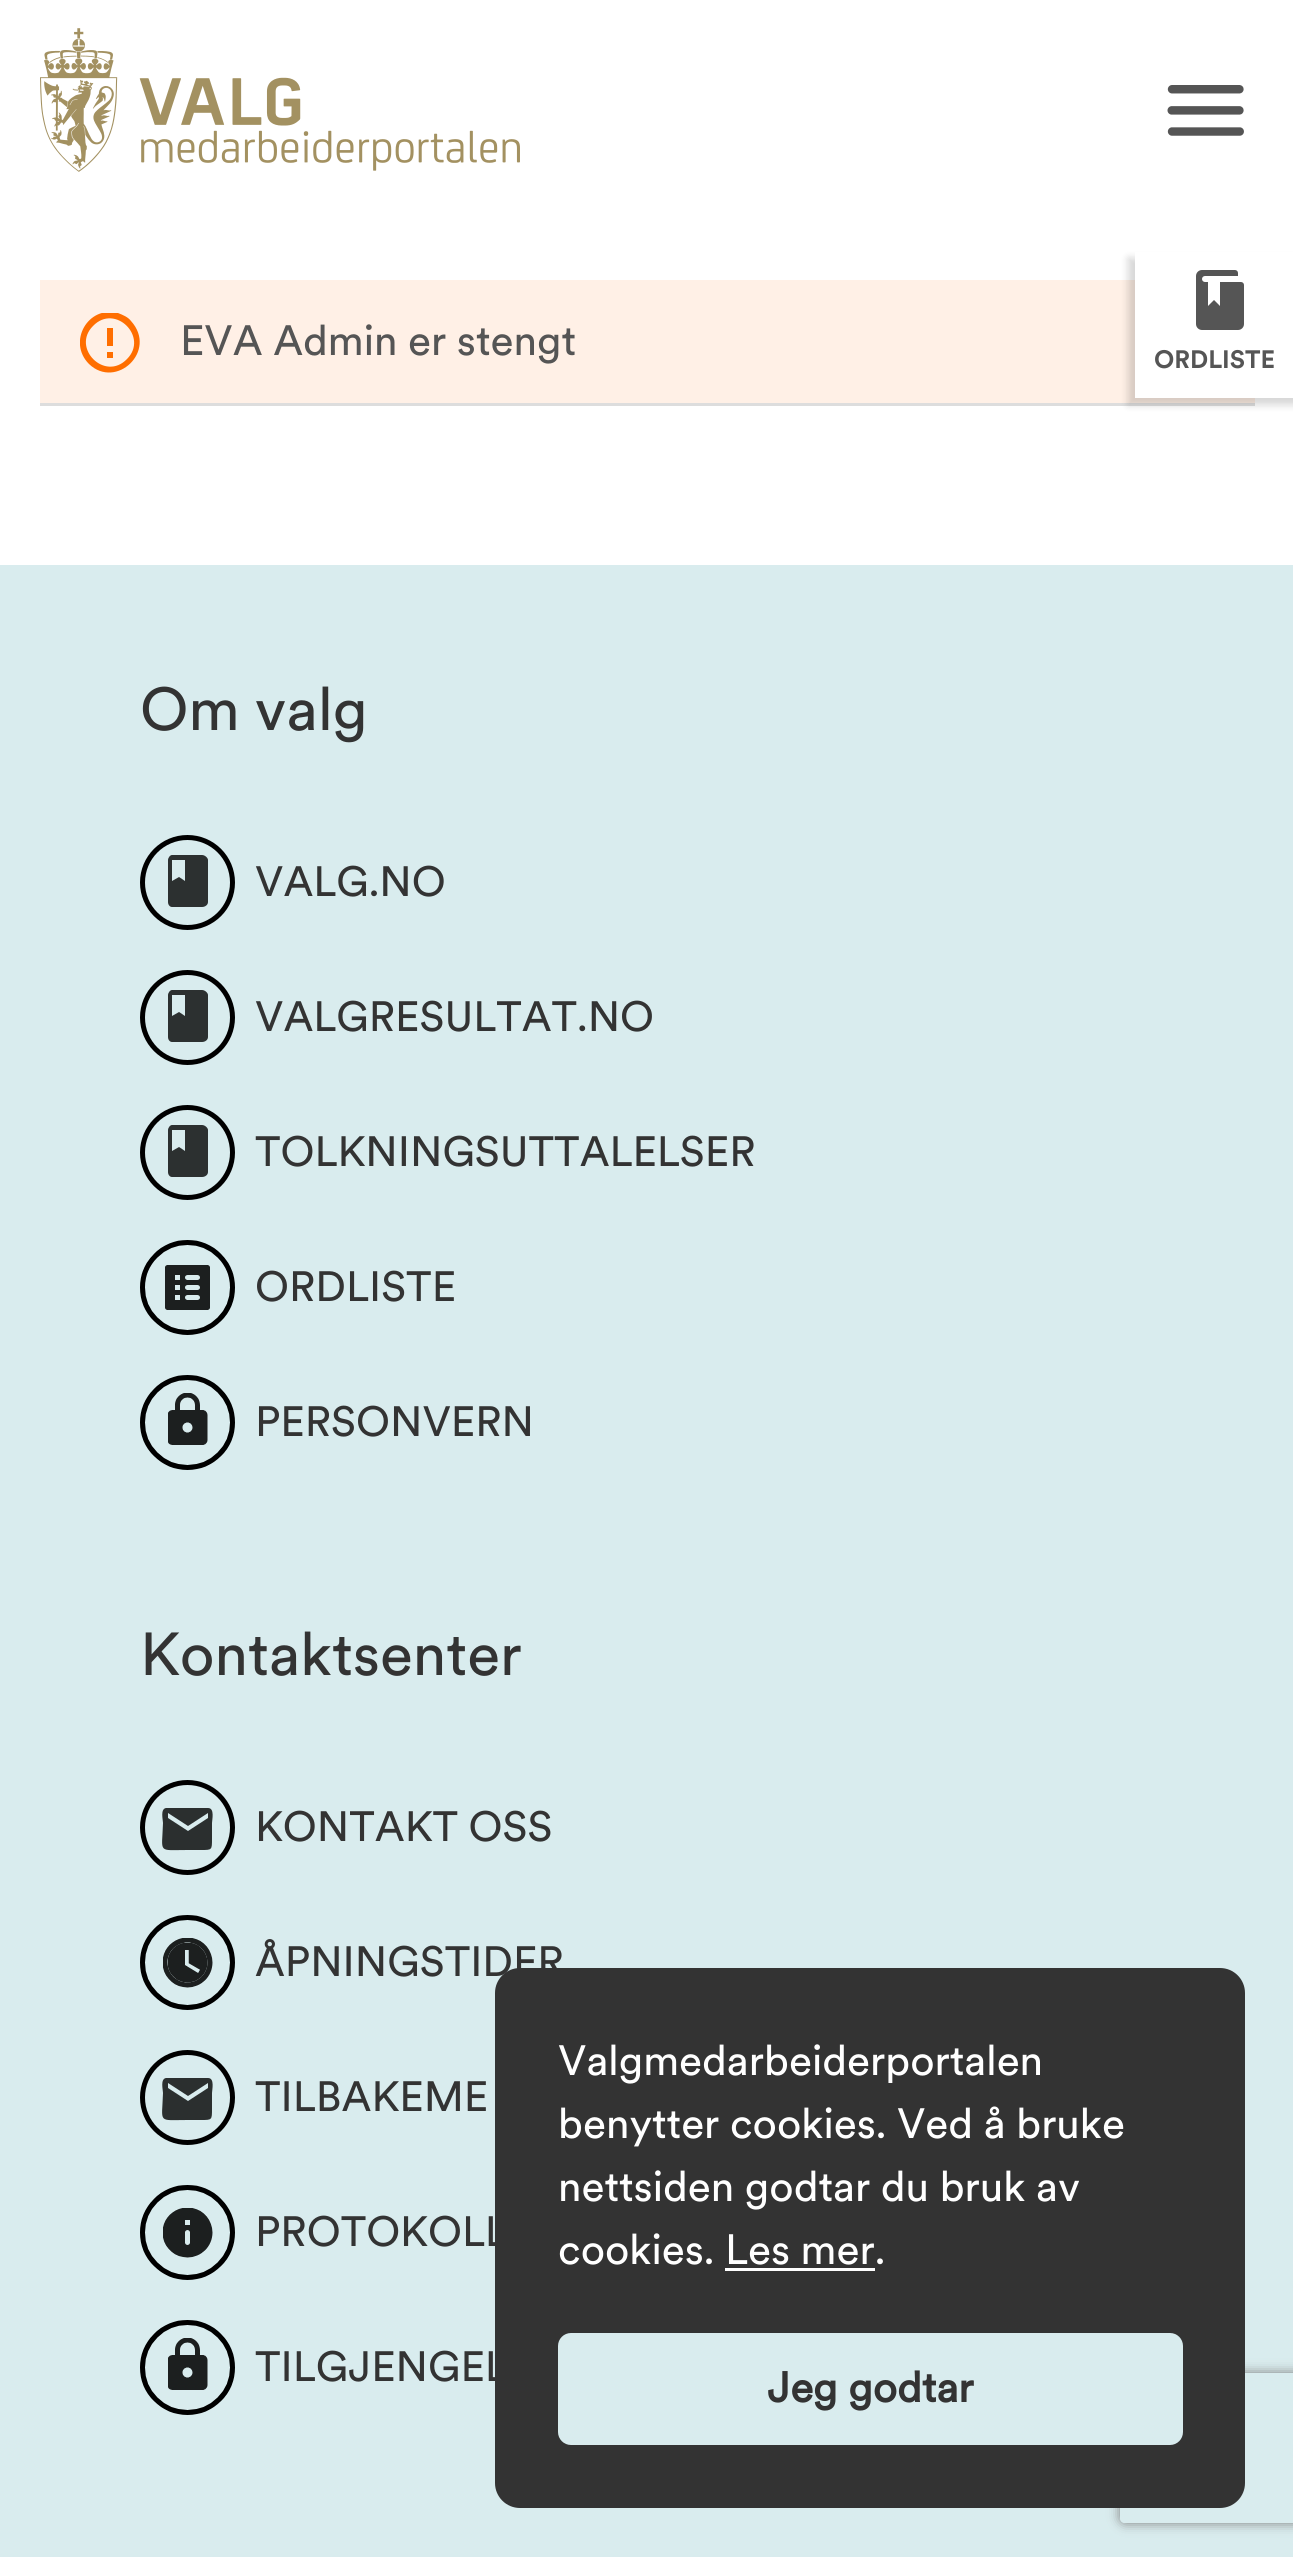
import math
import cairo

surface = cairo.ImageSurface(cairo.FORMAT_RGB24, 1293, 2557)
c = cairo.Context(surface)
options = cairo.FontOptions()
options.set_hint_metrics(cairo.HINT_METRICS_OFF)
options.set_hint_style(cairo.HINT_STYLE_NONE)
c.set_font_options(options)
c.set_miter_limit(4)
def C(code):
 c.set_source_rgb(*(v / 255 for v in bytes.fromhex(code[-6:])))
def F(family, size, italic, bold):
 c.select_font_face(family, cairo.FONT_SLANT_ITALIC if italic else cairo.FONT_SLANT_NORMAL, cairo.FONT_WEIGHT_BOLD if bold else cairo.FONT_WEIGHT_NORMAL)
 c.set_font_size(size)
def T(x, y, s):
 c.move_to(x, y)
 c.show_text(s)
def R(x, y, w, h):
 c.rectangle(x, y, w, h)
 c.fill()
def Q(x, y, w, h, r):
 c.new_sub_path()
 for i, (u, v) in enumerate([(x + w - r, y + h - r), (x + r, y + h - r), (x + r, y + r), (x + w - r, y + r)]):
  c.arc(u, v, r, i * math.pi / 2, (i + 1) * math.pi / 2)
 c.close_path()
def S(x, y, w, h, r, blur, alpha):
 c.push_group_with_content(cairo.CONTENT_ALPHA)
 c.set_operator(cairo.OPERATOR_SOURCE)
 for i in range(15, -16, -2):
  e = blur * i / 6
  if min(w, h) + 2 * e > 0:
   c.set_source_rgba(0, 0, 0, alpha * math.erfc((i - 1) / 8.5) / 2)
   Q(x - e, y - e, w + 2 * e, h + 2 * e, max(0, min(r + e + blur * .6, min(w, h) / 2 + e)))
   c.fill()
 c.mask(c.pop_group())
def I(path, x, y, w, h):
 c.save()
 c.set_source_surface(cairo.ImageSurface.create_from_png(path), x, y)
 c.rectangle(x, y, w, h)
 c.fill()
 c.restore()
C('ffffff')
c.paint()
I('1.png',40,28,480,144)
I('2.png',1167,85,77,51)
C('fff0e6')
R(40,280,1215,123)
C('dddddd')
R(40,403,1215,3)
c.save()
c.rectangle(80,313,60,60)
c.clip()
C('ff6e00')
c.new_path()
c.move_to(89,364)
c.curve_to(67,342,88,305,118,313)
c.curve_to(123,315,128,317,131,321)
c.curve_to(158,351,116,390,89,364)
c.close_path()
c.move_to(127,359)
c.curve_to(149,337,115,303,93,326)
c.curve_to(71,348,105,382,127,359)
c.close_path()
c.move_to(107,328)
c.line_to(113,328)
c.line_to(113,346)
c.line_to(107,346)
c.close_path()
c.move_to(107,352)
c.line_to(113,352)
c.line_to(113,358)
c.line_to(107,358)
c.close_path()
c.fill()
c.restore()
F('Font',42,0,0)
C('555555')
T(180,355,'EVA Admin er stengt')
C('d9ecee')
R(0,565,1293,1992)
F('Font',60,0,0)
C('333333')
T(140,730,'Om valg')
c.new_path()
c.arc(187.5,882.5,45,0,2 * math.pi)
C('000000')
c.set_line_width(5)
c.stroke()
C('2c3030')
c.set_fill_rule(cairo.FILL_RULE_EVEN_ODD)
c.new_path()
c.move_to(202,855)
c.line_to(172,855)
c.curve_to(170,855,168,858,168,860)
c.line_to(168,902)
c.curve_to(168,905,170,907,172,907)
c.line_to(202,907)
c.curve_to(205,907,208,905,208,902)
c.line_to(208,860)
c.curve_to(208,858,205,855,202,855)
c.close_path()
c.move_to(172,860)
c.line_to(185,860)
c.line_to(185,881)
c.line_to(179,877)
c.line_to(172,881)
c.close_path()
c.fill()
F('Font',42,0,0)
C('333333')
T(255,896,'VALG.NO')
c.new_path()
c.arc(187.5,1017.5,45,0,2 * math.pi)
C('000000')
c.stroke()
C('2c3030')
c.new_path()
c.move_to(202,990)
c.line_to(172,990)
c.curve_to(170,990,168,993,168,995)
c.line_to(168,1037)
c.curve_to(168,1040,170,1042,172,1042)
c.line_to(202,1042)
c.curve_to(205,1042,208,1040,208,1037)
c.line_to(208,995)
c.curve_to(208,993,205,990,202,990)
c.close_path()
c.move_to(172,995)
c.line_to(185,995)
c.line_to(185,1016)
c.line_to(179,1012)
c.line_to(172,1016)
c.close_path()
c.fill()
C('333333')
T(255,1031,'VALGRESULTAT.NO')
c.new_path()
c.arc(187.5,1152.5,45,0,2 * math.pi)
C('000000')
c.stroke()
C('2c3030')
c.new_path()
c.move_to(202,1125)
c.line_to(172,1125)
c.curve_to(170,1125,168,1128,168,1130)
c.line_to(168,1172)
c.curve_to(168,1175,170,1177,172,1177)
c.line_to(202,1177)
c.curve_to(205,1177,208,1175,208,1172)
c.line_to(208,1130)
c.curve_to(208,1128,205,1125,202,1125)
c.close_path()
c.move_to(172,1130)
c.line_to(185,1130)
c.line_to(185,1151)
c.line_to(179,1147)
c.line_to(172,1151)
c.close_path()
c.fill()
C('333333')
T(255,1166,'TOLKNINGSUTTALELSER')
I('3.png',140,1240,95,95)
T(255,1301,'ORDLISTE')
I('4.png',140,1375,95,95)
T(255,1436,'PERSONVERN')
F('Font',60,0,0)
T(140,1675,'Kontaktsenter')
c.new_path()
c.arc(187.5,1827.5,45,0,2 * math.pi)
C('000000')
c.stroke()
C('2b2f2f')
c.new_path()
c.move_to(208,1808)
c.line_to(166,1808)
c.curve_to(160,1809,163,1820,163,1823)
c.curve_to(162,1854,157,1850,188,1850)
c.line_to(201,1850)
c.curve_to(212,1850,212,1850,212,1839)
c.line_to(212,1823)
c.curve_to(212,1820,215,1808,208,1808)
c.close_path()
c.move_to(208,1818)
c.line_to(188,1831)
c.line_to(168,1818)
c.line_to(168,1813)
c.line_to(188,1826)
c.line_to(208,1813)
c.close_path()
c.fill()
F('Font',42,0,0)
C('333333')
T(255,1841,'KONTAKT OSS')
I('5.png',140,1915,95,95)
T(255,1976,'ÅPNINGSTIDER')
c.new_path()
c.arc(187.5,2097.5,45,0,2 * math.pi)
C('000000')
c.stroke()
C('2b2f2f')
c.new_path()
c.move_to(208,2078)
c.line_to(166,2078)
c.curve_to(160,2079,163,2090,163,2093)
c.curve_to(162,2124,157,2120,188,2120)
c.line_to(201,2120)
c.curve_to(212,2120,212,2120,212,2109)
c.line_to(212,2093)
c.curve_to(212,2090,215,2078,208,2078)
c.close_path()
c.move_to(208,2088)
c.line_to(188,2101)
c.line_to(168,2088)
c.line_to(168,2083)
c.line_to(188,2096)
c.line_to(208,2083)
c.close_path()
c.fill()
C('333333')
T(255,2111,'TILBAKEME')
I('6.png',140,2185,95,95)
T(255,2246,'PROTOKOLL')
I('4.png',140,2320,95,95)
T(255,2381,'TILGJENGEL')
C('000000')
S(1128,258,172,147,0,4,.16)
C('ffffff')
R(1135,252,158,146)
I('7.png',1196,270,48,60)
F('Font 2',25,0,1)
C('555555')
T(1154,368,'ORDLISTE')
c.save()
c.new_path()
c.move_to(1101,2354)
c.line_to(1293,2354)
c.line_to(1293,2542)
c.line_to(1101,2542)
c.close_path()
c.move_to(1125,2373)
c.line_to(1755,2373)
c.curve_to(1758,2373,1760,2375,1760,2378)
c.line_to(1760,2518)
c.curve_to(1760,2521,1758,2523,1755,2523)
c.line_to(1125,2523)
c.curve_to(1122,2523,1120,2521,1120,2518)
c.line_to(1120,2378)
c.curve_to(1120,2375,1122,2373,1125,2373)
c.close_path()
c.clip()
C('808080')
S(1120,2373,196,150,5,6,1)
c.restore()
C('333333')
Q(495,1968,750,540,25)
c.fill()
F('Font',42,0,0)
C('ffffff')
T(558,2075,'Valgmedarbeiderportalen')
T(558,2138,'benytter cookies. Ved å bruke')
T(558,2201,'nettsiden godtar du bruk av')
T(558,2264,'cookies. Les mer.')
R(725,2268,150,3)
C('d9ecee')
Q(558,2333,625,112,13)
c.fill()
F('Font',42,0,1)
C('333333')
T(767,2402,'Jeg godtar')
surface.write_to_png('o.png')
